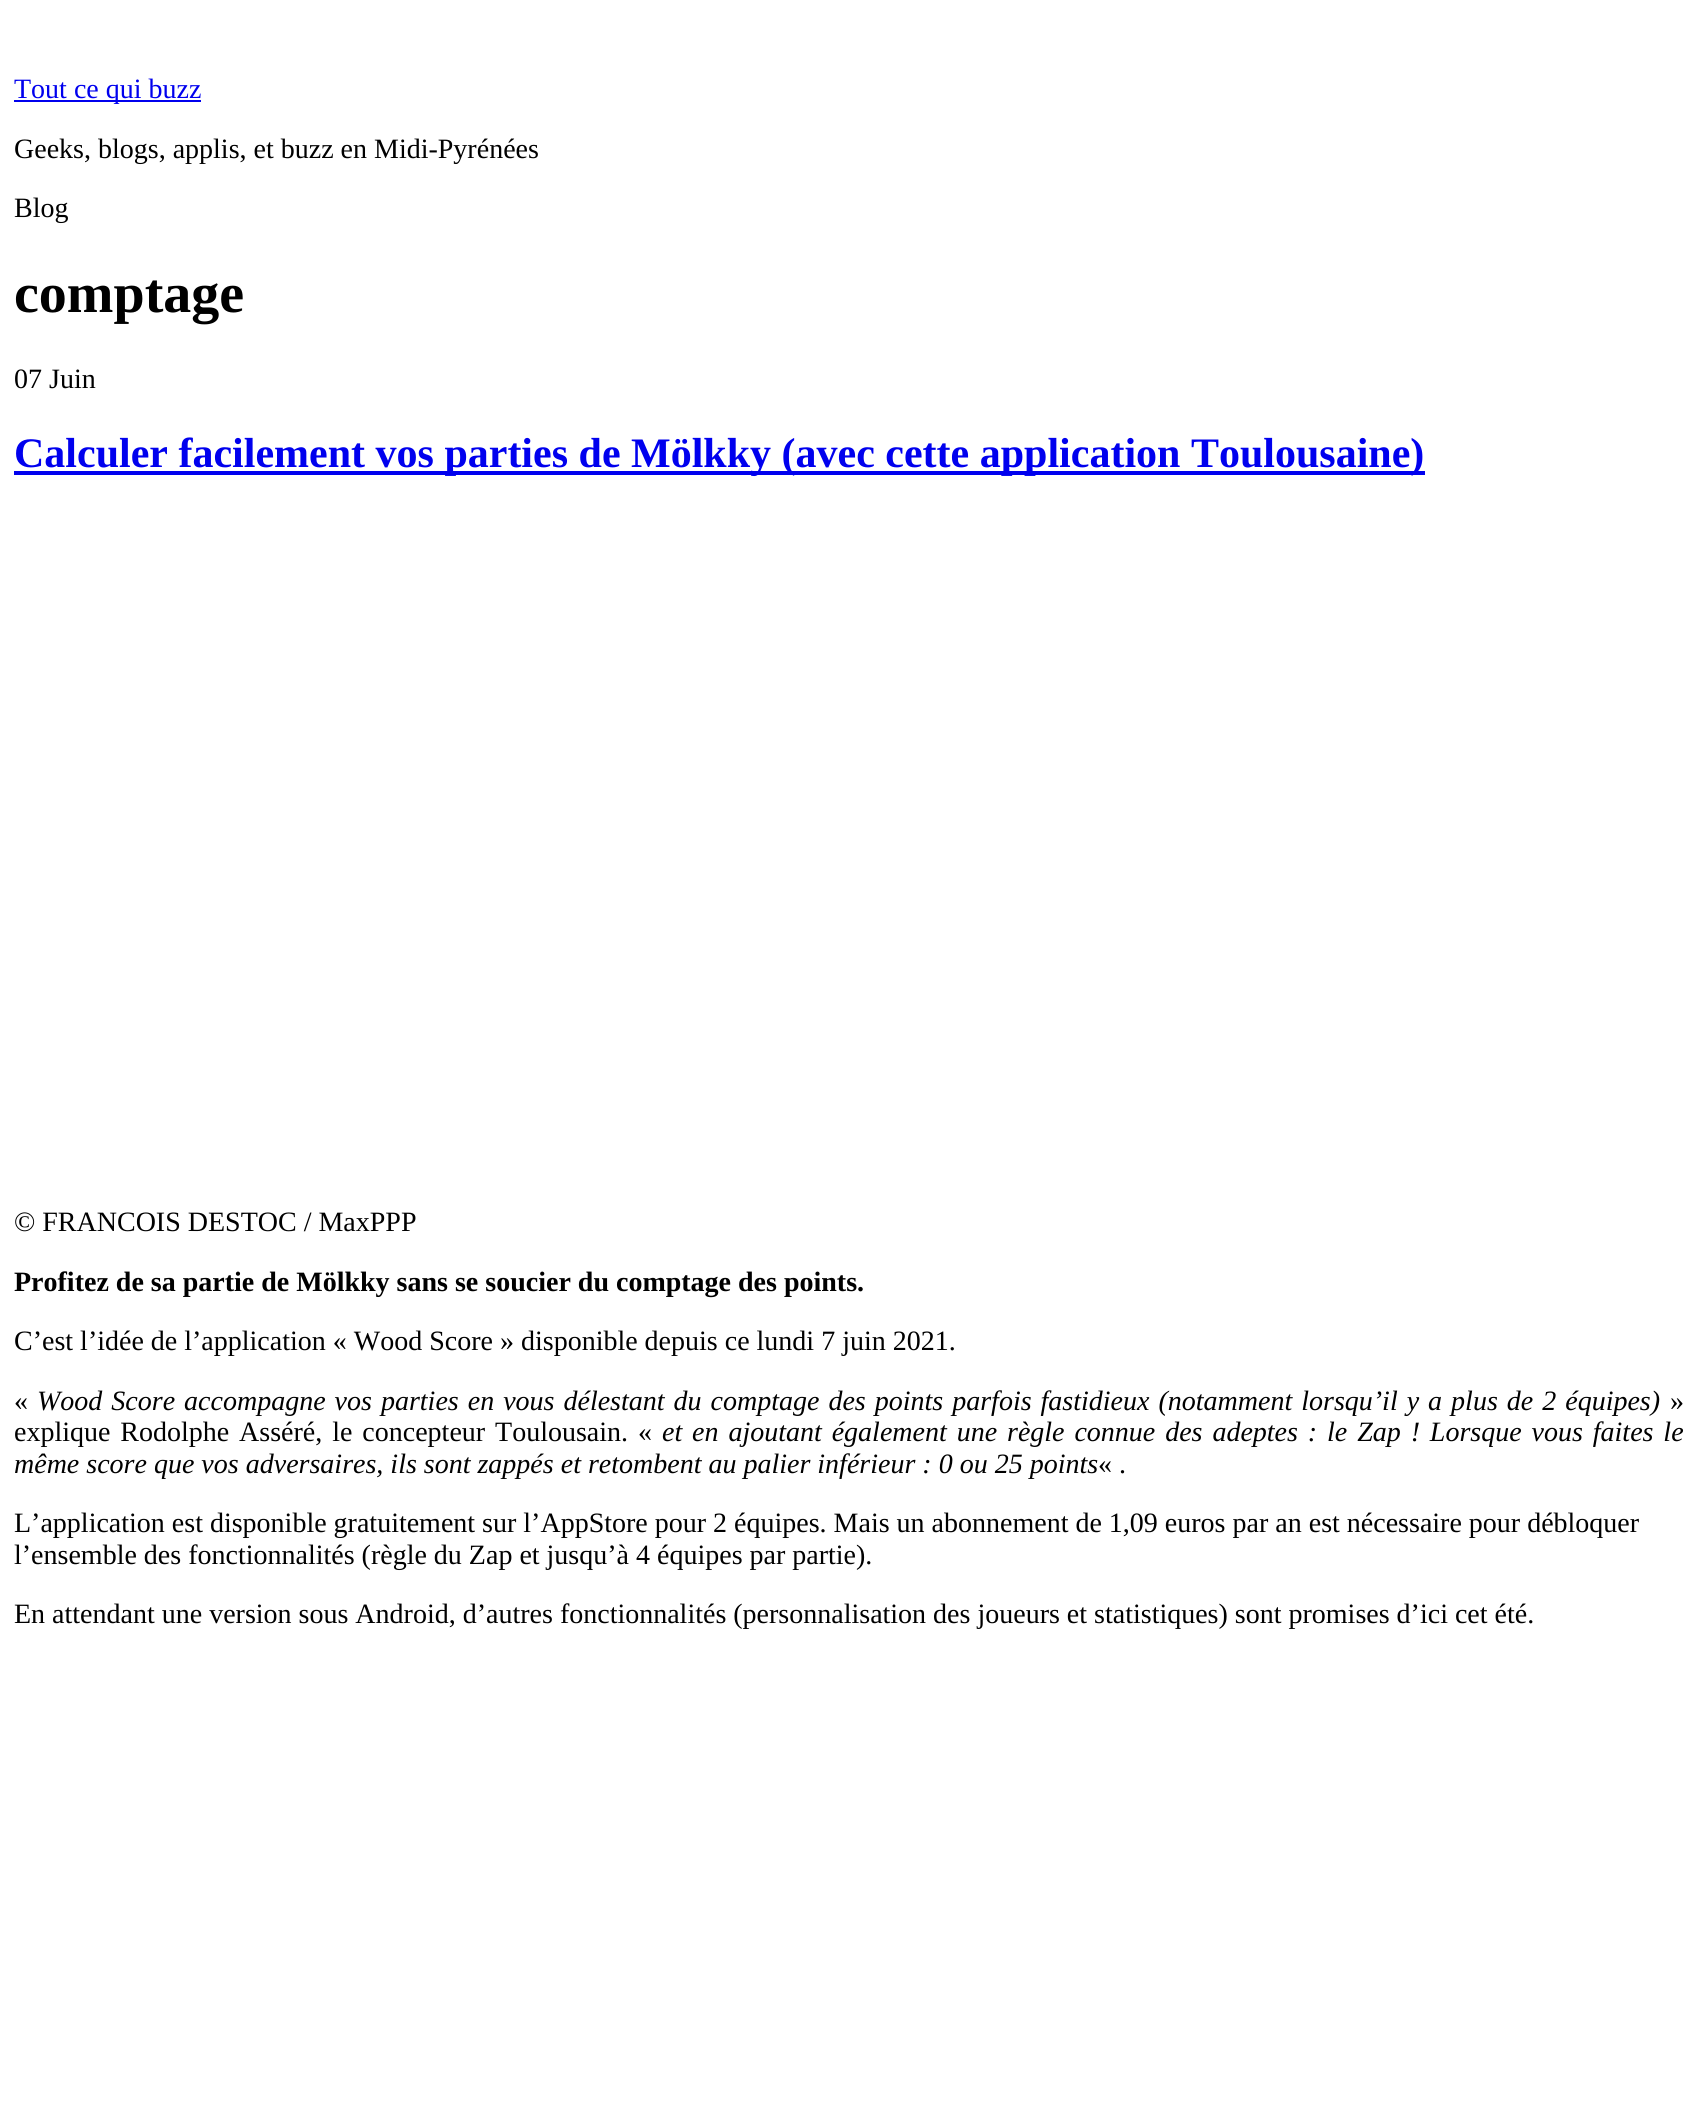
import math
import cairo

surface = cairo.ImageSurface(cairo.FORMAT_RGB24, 1696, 2118)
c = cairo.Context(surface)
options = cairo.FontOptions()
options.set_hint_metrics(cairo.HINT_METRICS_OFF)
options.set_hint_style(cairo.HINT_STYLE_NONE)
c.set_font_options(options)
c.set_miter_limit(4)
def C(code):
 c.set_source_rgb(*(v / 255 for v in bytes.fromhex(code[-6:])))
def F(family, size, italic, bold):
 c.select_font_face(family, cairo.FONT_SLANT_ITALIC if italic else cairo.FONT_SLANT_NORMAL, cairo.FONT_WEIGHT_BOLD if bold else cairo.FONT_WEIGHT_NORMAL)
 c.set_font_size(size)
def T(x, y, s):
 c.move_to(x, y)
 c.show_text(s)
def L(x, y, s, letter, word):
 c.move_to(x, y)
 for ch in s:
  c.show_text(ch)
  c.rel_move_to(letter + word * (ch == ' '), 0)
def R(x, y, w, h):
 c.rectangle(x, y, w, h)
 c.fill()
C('ffffff')
c.paint()
C('0000ee')
R(14,100,187,2)
F('Liberation Serif',28,0,0)
T(14,98,'Tout ce qui buzz')
C('000000')
T(14,158,'Geeks, blogs, applis, et buzz en Midi-Pyrénées')
T(14,217,'Blog')
F('Liberation Serif',56,0,1)
T(14,312,'comptage')
F('Liberation Serif',28,0,0)
T(14,388,'07 Juin')
C('0000ee')
R(14,471,1411,4)
F('Liberation Serif',42,0,1)
T(14,467,'Calculer facilement vos parties de Mölkky (avec cette application Toulousaine)')
F('Liberation Serif',28,0,0)
C('000000')
T(14,1231,'© FRANCOIS DESTOC / MaxPPP')
F('Liberation Serif',28,0,1)
T(14,1291,'Profitez de sa partie de Mölkky sans se soucier du comptage des points.')
F('Liberation Serif',28,0,0)
T(14,1350,'C’est l’idée de l’application « Wood Score » disponible depuis ce lundi 7 juin 2021.')
T(14,1410,'«')
F('Liberation Serif',28,1,0)
L(37,1410,'Wood Score accompagne vos parties en vous délestant du comptage des points parfois fastidieux (notamment lorsqu’il y a plus de 2 équipes)',0,2)
F('Liberation Serif',28,0,0)
T(1670,1410,'»')
L(14,1441,'explique Rodolphe Asséré, le concepteur Toulousain. «',0,2.9)
F('Liberation Serif',28,1,0)
L(662,1441,'et en ajoutant également une règle connue des adeptes : le Zap ! Lorsque vous faites le',0,2.9)
T(14,1473,'même score que vos adversaires, ils sont zappés et retombent au palier inférieur : 0 ou 25 points')
F('Liberation Serif',28,0,0)
T(1098,1473,'« .')
T(14,1532,'L’application est disponible gratuitement sur l’AppStore pour 2 équipes. Mais un abonnement de 1,09 euros par an est nécessaire pour débloquer')
T(14,1564,'l’ensemble des fonctionnalités (règle du Zap et jusqu’à 4 équipes par partie).')
T(14,1623,'En attendant une version sous Android, d’autres fonctionnalités (personnalisation des joueurs et statistiques) sont promises d’ici cet été.')
surface.write_to_png('o.png')
